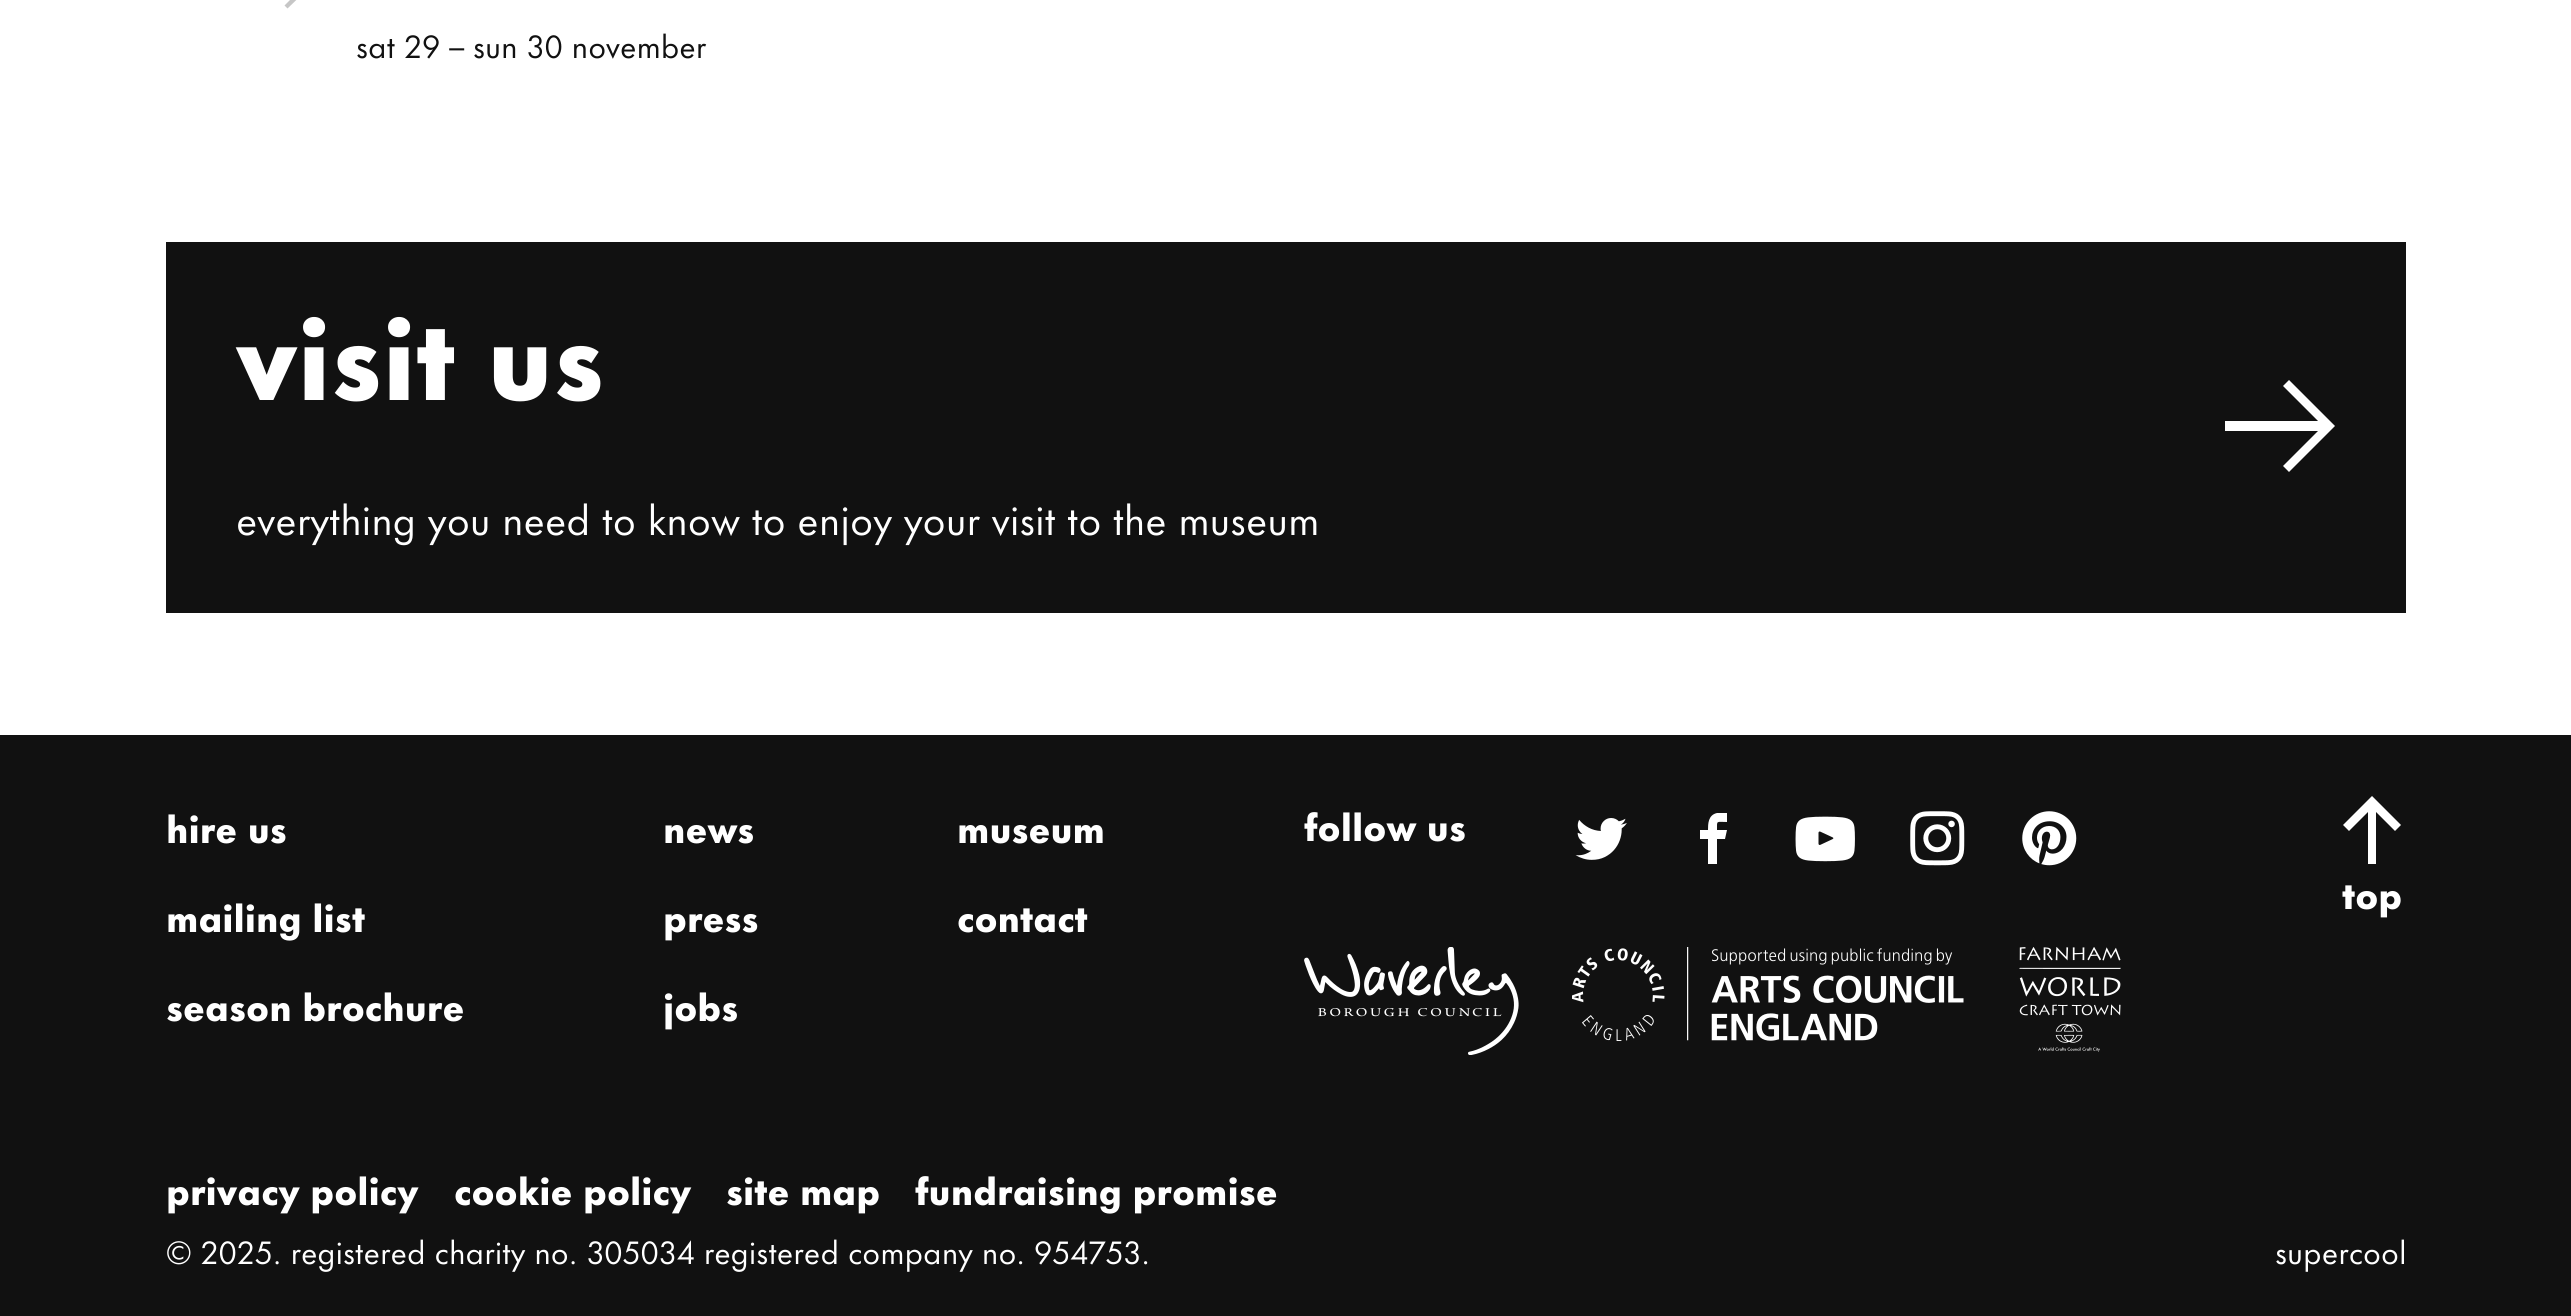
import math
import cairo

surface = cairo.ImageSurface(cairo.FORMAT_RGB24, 2571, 1316)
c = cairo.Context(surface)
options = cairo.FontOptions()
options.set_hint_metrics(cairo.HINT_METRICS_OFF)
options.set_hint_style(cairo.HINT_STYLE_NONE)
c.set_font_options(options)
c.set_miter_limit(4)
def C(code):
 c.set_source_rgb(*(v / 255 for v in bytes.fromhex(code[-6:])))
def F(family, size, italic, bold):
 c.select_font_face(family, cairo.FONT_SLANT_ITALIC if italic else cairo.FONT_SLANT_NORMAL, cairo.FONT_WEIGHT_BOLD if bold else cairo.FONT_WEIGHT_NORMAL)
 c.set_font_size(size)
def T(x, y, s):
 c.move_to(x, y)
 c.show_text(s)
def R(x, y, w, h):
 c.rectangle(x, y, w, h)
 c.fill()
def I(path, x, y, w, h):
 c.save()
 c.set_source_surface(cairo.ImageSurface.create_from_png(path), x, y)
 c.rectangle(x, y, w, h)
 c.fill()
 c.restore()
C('ffffff')
c.paint()
C('c6c6c6')
c.set_fill_rule(cairo.FILL_RULE_EVEN_ODD)
c.new_path()
c.move_to(302.5,-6)
c.line_to(287.5,-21)
c.line_to(284.5,-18)
c.line_to(294,-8)
c.line_to(268,-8)
c.line_to(268,-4)
c.line_to(294,-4)
c.line_to(284.5,5.5)
c.line_to(287.5,8.5)
c.close_path()
c.fill()
F('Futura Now',29.75,0,0)
C('111111')
T(356,58,'sat 29 – sun 30 november')
R(166,242,2240,371)
F('Futura Now',105,0,1)
C('ffffff')
T(236,400,'visit us')
c.new_path()
c.move_to(2289,380)
c.line_to(2335,426)
c.line_to(2289,472)
c.line_to(2283,466)
c.line_to(2318,431)
c.line_to(2225,431)
c.line_to(2225,421)
c.line_to(2318,421)
c.line_to(2283,386)
c.close_path()
c.fill()
F('Futura Now',38.5,0,0)
T(236,535,'everything you need to know to enjoy your visit to the museum')
C('111111')
R(0,735,2571,581)
F('Futura Now',35,0,1)
C('ffffff')
T(166,843,'hire us')
T(663,843,'news')
T(957,843,'museum')
T(166,932,'mailing list')
T(663,932,'press')
T(957,932,'contact')
T(166,1021,'season brochure')
T(663,1021,'jobs')
T(1304,841,'follow us')
I('1.png',1575,818,52,42)
c.new_path()
c.move_to(1727,822)
c.line_to(1727,813)
c.line_to(1717,813)
c.curve_to(1708,815,1708,824,1708,830)
c.line_to(1700,830)
c.line_to(1700,839)
c.line_to(1708,839)
c.line_to(1708,864)
c.line_to(1717,864)
c.line_to(1717,839)
c.line_to(1725,839)
c.line_to(1727,830)
c.line_to(1717,830)
c.curve_to(1717,820,1716,822,1727,822)
c.close_path()
c.fill()
I('2.png',1795,816,60,46)
I('3.png',1910,811,55,55)
I('4.png',2022,811,55,55)
c.set_fill_rule(cairo.FILL_RULE_WINDING)
c.new_path()
c.move_to(2372,796)
c.line_to(2401,825)
c.line_to(2395,831)
c.line_to(2376,812)
c.line_to(2376,864)
c.line_to(2368,864)
c.line_to(2368,812)
c.line_to(2349,831)
c.line_to(2343,825)
c.close_path()
c.fill()
T(2342,909,'top')
I('5.png',1304,947,215,108)
I('6.png',1572,947,392,94)
I('7.png',2019,947,102,105)
T(166,1205,'privacy policy')
T(454,1205,'cookie policy')
T(726,1205,'site map')
T(915,1205,'fundraising promise')
F('Futura Now',29.75,0,0)
T(166,1264,'© 2025. registered charity no. 305034 registered company no. 954753.')
T(2275,1264,'supercool')
surface.write_to_png('o.png')
